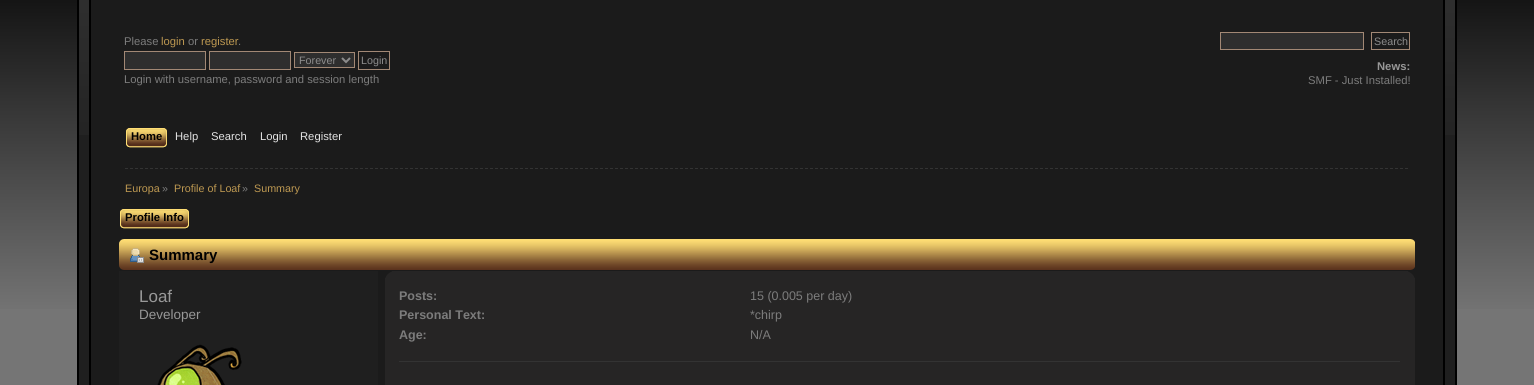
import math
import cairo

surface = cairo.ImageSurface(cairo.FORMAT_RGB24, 1534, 385)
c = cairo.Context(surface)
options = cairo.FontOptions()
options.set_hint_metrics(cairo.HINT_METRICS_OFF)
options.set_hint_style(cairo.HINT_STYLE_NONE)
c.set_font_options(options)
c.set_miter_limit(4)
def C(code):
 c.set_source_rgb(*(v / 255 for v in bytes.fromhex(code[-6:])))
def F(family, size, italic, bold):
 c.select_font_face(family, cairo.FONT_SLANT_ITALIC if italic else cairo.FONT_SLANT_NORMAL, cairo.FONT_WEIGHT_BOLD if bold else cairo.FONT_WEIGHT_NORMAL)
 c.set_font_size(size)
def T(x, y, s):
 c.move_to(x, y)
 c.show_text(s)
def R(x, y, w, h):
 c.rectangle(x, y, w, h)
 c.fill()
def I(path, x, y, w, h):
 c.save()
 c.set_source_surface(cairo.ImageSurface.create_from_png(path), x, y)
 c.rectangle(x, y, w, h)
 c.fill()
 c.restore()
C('757575')
c.paint()
gradient = cairo.LinearGradient(0,-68,0,317)
gradient.add_color_stop_rgba(0,0,0,0,1)
gradient.add_color_stop_rgba(1,0.459,0.459,0.459,1)
c.set_source(gradient)
R(0,0,1534,309)
C('1f1f1f')
R(79,135,1376,250)
I('1.png',79,0,1376,135)
c.rectangle(78,-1,1378,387)
C('000000')
c.stroke()
C('1b1b1b')
c.rectangle(90,-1,1354,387)
c.fill_preserve()
C('000000')
c.stroke()
F('Liberation Sans',11.25,0,0)
C('7c7c7c')
T(124,45,'Please')
C('bd9851')
T(161,45,'login')
C('7c7c7c')
T(188,45,'or')
C('bd9851')
T(201,45,'register')
C('7c7c7c')
T(238,45,'.')
C('2e2e2e')
c.rectangle(124.5,51.5,81,18)
c.fill_preserve()
C('a28875')
c.set_line_width(1)
c.stroke()
C('2e2e2e')
c.rectangle(209.5,51.5,81,18)
c.fill_preserve()
C('a28875')
c.stroke()
C('2e2e2e')
c.rectangle(294.5,52.5,60,15)
c.fill_preserve()
C('a28875')
c.stroke()
c.new_path()
c.move_to(342,58)
c.line_to(346,62)
c.line_to(350,58)
C('8c8c8c')
c.set_line_width(2)
c.stroke()
F('Liberation Sans',10.75,0,0)
T(299,64,'Forever')
c.rectangle(358.5,51.5,31,18)
C('a28875')
c.set_line_width(1)
c.stroke()
C('8c8c8c')
T(361,64,'Login')
F('Liberation Sans',11.25,0,0)
C('7c7c7c')
T(124,83,'Login with username, password and session length')
C('2e2e2e')
c.rectangle(1220.5,32.5,143,17)
c.fill_preserve()
C('a28875')
c.stroke()
c.rectangle(1371.5,32.5,38,17)
c.stroke()
F('Liberation Sans',10.75,0,0)
C('8c8c8c')
T(1374,45,'Search')
F('Liberation Sans',11.25,0,1)
C('989898')
T(1377,70,'News:')
F('Liberation Sans',11.25,0,0)
C('7c7c7c')
T(1308,84,'SMF - Just Installed!')
I('2.png',131,128,36,20)
I('3.png',126,128,5,20)
F('Liberation Sans',11.25,0,1)
C('000000')
T(131,140,'Home')
F('Liberation Sans',11.25,0,0)
C('e3e3e3')
T(175,140,'Help')
T(211,140,'Search')
T(260,140,'Login')
T(300,140,'Register')
c.new_path()
c.move_to(125,168.5)
c.line_to(1409,168.5)
C('333333')
c.set_dash([3,2])
c.stroke()
F('Liberation Sans',10.75,0,0)
C('bd9851')
T(125,192,'Europa')
C('7c7c7c')
T(162,192,'»')
C('bd9851')
T(174,192,'Profile of Loaf')
C('7c7c7c')
T(242,192,'»')
C('bd9851')
T(254,192,'Summary')
I('4.png',125,209,64,20)
I('5.png',120,209,5,20)
F('Liberation Sans',11.25,0,1)
C('000000')
T(125,221,'Profile Info')
I('6.png',119,239,1291,31)
I('7.png',1410,239,5,31)
I('8.png',130,248,14,15)
F('Liberation Sans',15,0,1)
T(149,260,'Summary')
C('1f1f1f')
R(119,271,259,114)
F('Liberation Sans',17,0,0)
C('989898')
T(139,302,'Loaf')
F('Liberation Sans',13.5,0,0)
T(139,319,'Developer')
I('9.png',157,344,85,41)
C('262525')
R(385,271,1030,114)
I('10.png',385,271,7,7)
I('11.png',1408,271,7,7)
C('333333')
R(399,361,1001,1)
F('Liberation Sans',12.5,0,1)
C('7c7c7c')
T(399,300,'Posts:')
F('Liberation Sans',12.5,0,0)
T(750,300,'15 (0.005 per day)')
F('Liberation Sans',12.5,0,1)
T(399,319,'Personal Text:')
F('Liberation Sans',12.5,0,0)
T(750,319,'*chirp')
F('Liberation Sans',12.5,0,1)
T(399,339,'Age:')
F('Liberation Sans',12.5,0,0)
T(750,339,'N/A')
surface.write_to_png('o.png')
